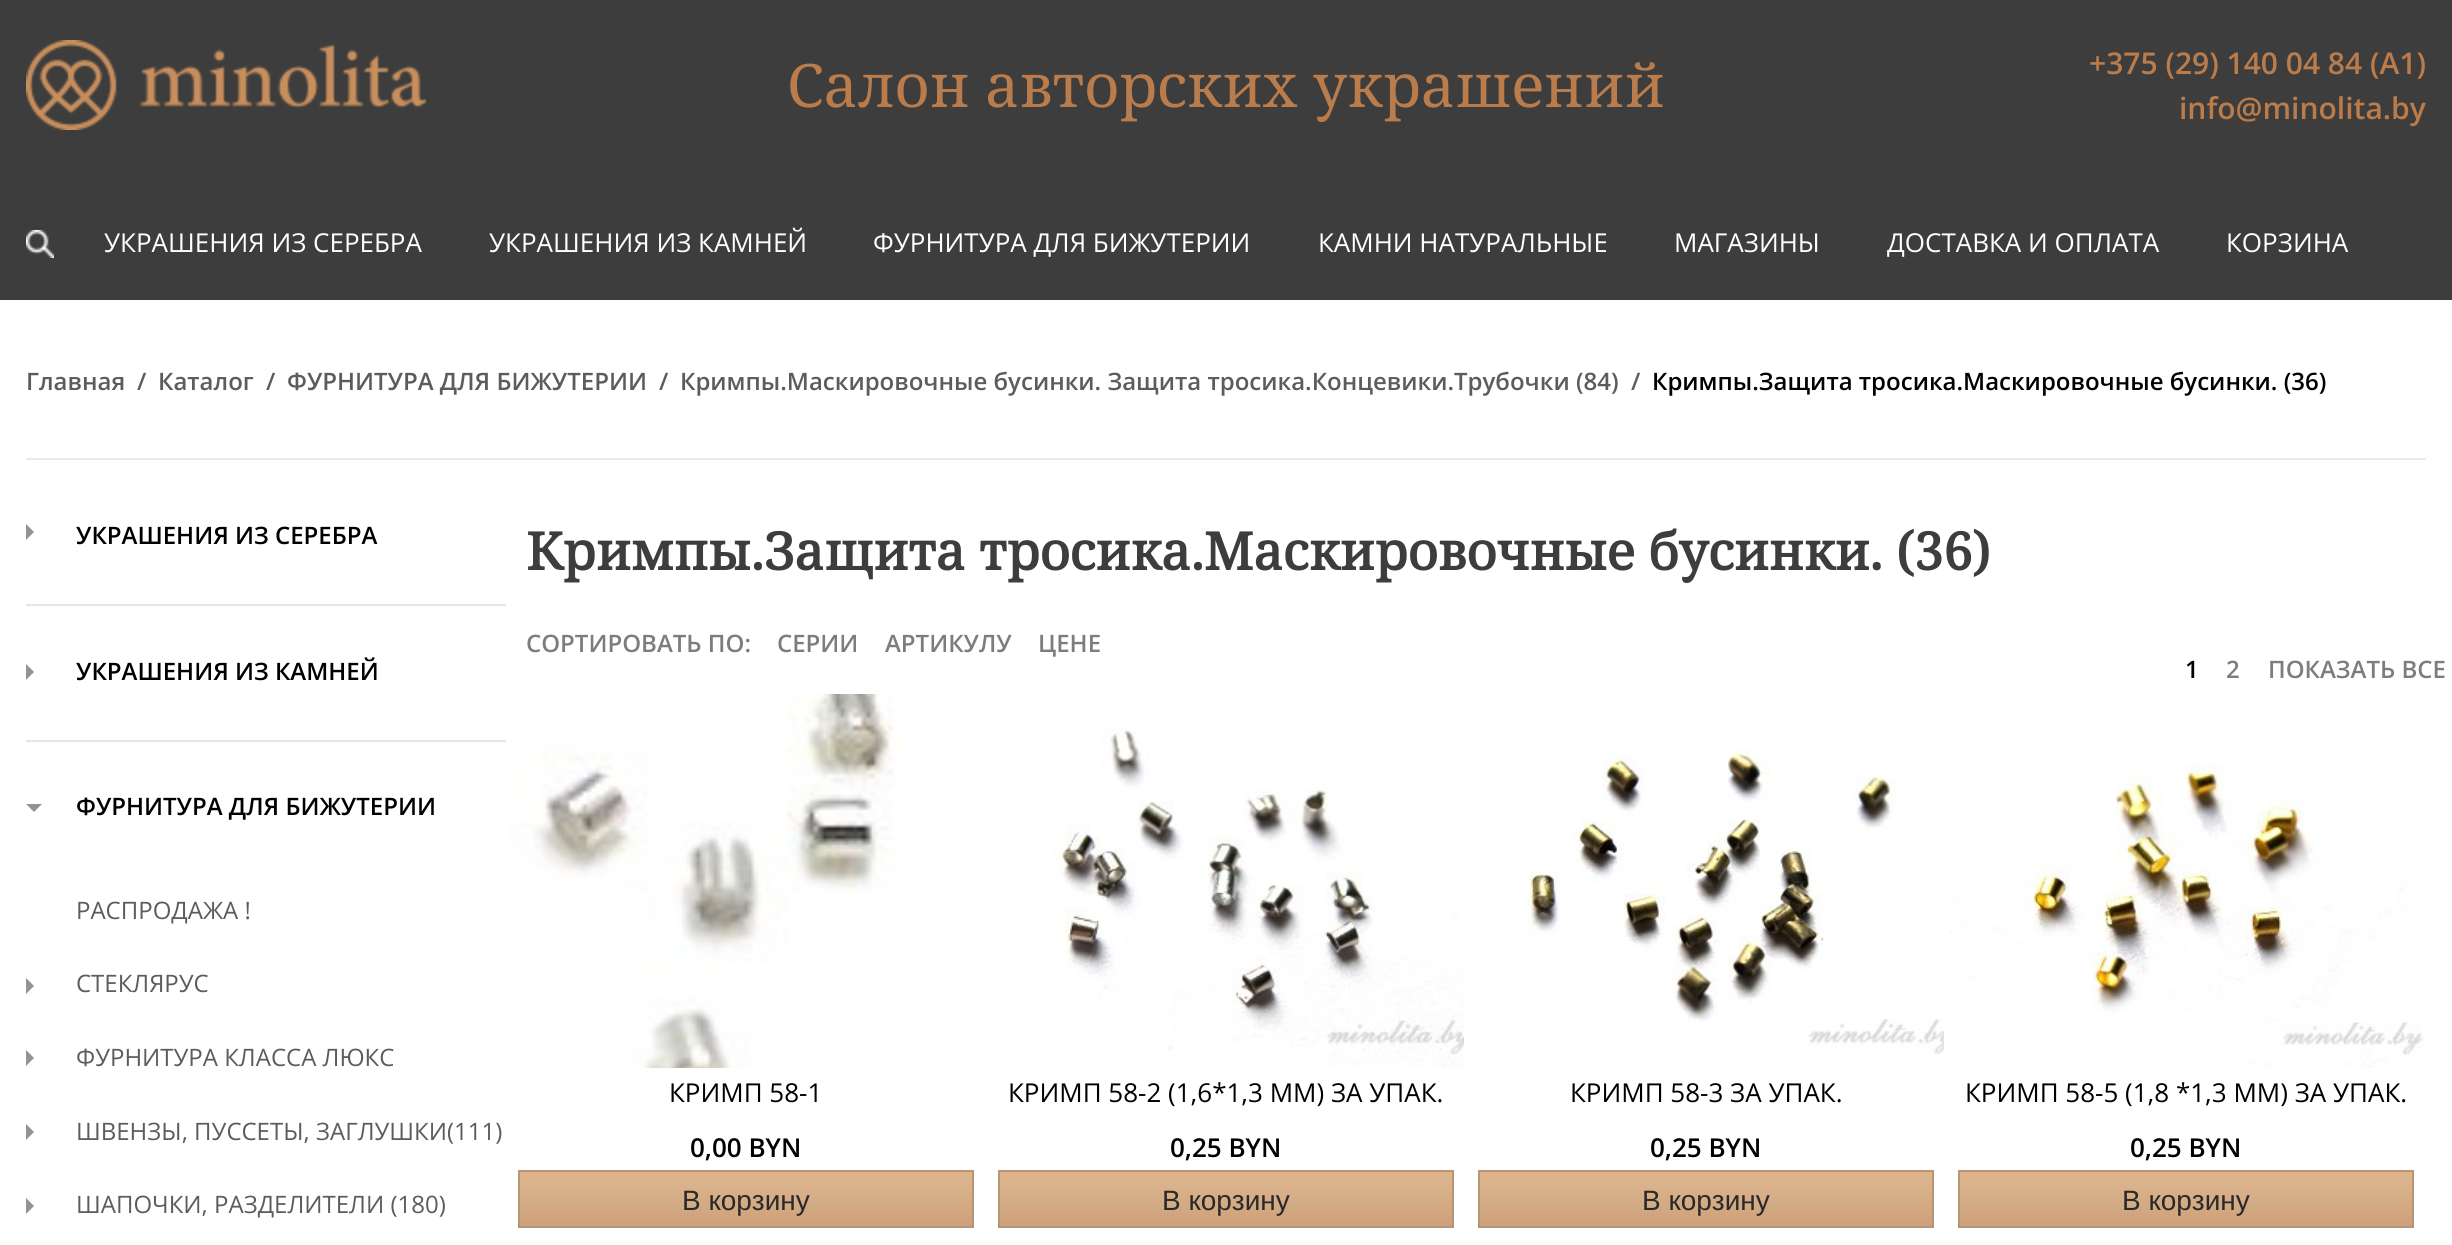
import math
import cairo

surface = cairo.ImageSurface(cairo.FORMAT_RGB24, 2452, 1245)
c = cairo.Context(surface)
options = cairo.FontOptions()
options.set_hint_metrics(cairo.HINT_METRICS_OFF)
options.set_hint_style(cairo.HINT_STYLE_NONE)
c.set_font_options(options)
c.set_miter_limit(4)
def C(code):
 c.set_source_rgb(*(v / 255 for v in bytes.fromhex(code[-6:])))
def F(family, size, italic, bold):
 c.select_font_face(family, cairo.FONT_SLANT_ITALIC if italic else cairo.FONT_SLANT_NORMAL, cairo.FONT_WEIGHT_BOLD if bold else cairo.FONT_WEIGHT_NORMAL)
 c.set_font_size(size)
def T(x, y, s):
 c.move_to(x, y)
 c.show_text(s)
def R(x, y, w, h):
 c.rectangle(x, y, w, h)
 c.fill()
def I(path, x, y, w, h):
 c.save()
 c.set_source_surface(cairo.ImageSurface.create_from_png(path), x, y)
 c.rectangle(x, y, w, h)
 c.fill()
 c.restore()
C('ffffff')
c.paint()
C('3d3d3d')
R(0,0,2452,300)
I('1.png',26,40,400,90)
F('Noto Serif',60,0,0)
C('bb7c4b')
T(787,107,'Салон авторских украшений')
F('Open Sans SemiBold',30,0,0)
T(2089,74,'+375 (29) 140 04 84 (А1)')
T(2179,119,'info@minolita.by')
I('2.png',26,230,28,28)
F('Open Sans',26,0,0)
C('ffffff')
T(104,252,'УКРАШЕНИЯ ИЗ СЕРЕБРА')
T(489,252,'УКРАШЕНИЯ ИЗ КАМНЕЙ')
T(873,252,'ФУРНИТУРА ДЛЯ БИЖУТЕРИИ')
T(1318,252,'КАМНИ НАТУРАЛЬНЫЕ')
T(1674,252,'МАГАЗИНЫ')
T(1887,252,'ДОСТАВКА И ОПЛАТА')
T(2226,252,'КОРЗИНА')
C('eaeaea')
R(26,458,2400,2)
F('Open Sans SemiBold',24,0,0)
C('5c5c5c')
T(26,390,'Главная')
T(137,390,'/')
T(158,390,'Каталог')
T(266,390,'/')
T(287,390,'ФУРНИТУРА ДЛЯ БИЖУТЕРИИ')
T(659,390,'/')
T(680,390,'Кримпы.Маскировочные бусинки. Защита тросика.Концевики.Трубочки (84)')
T(1631,390,'/')
C('000000')
T(1652,390,'Кримпы.Защита тросика.Маскировочные бусинки. (36)')
C('949393')
c.new_path()
c.move_to(26,540)
c.line_to(26,524)
c.line_to(34,532)
c.close_path()
c.fill()
C('000000')
T(76,544,'УКРАШЕНИЯ ИЗ СЕРЕБРА')
C('e5e5e5')
R(26,604,480,2)
C('949393')
c.new_path()
c.move_to(26,680)
c.line_to(26,664)
c.line_to(34,672)
c.close_path()
c.fill()
C('000000')
T(76,680,'УКРАШЕНИЯ ИЗ КАМНЕЙ')
C('e5e5e5')
R(26,740,480,2)
C('949393')
c.new_path()
c.move_to(26,804)
c.line_to(42,804)
c.line_to(34,812)
c.close_path()
c.fill()
C('000000')
T(76,815,'ФУРНИТУРА ДЛЯ БИЖУТЕРИИ')
F('Open Sans',24,0,0)
C('5c5c5c')
T(76,919,'РАСПРОДАЖА !')
C('949393')
c.new_path()
c.move_to(26,994)
c.line_to(26,978)
c.line_to(34,986)
c.close_path()
c.fill()
C('5c5c5c')
T(76,992,'СТЕКЛЯРУС')
C('949393')
c.new_path()
c.move_to(26,1066)
c.line_to(26,1050)
c.line_to(34,1058)
c.close_path()
c.fill()
C('5c5c5c')
T(76,1066,'ФУРНИТУРА КЛАССА ЛЮКС')
C('949393')
c.new_path()
c.move_to(26,1140)
c.line_to(26,1124)
c.line_to(34,1132)
c.close_path()
c.fill()
C('5c5c5c')
T(76,1140,'ШВЕНЗЫ, ПУССЕТЫ, ЗАГЛУШКИ(111)')
C('949393')
c.new_path()
c.move_to(26,1214)
c.line_to(26,1198)
c.line_to(34,1206)
c.close_path()
c.fill()
C('5c5c5c')
T(76,1213,'ШАПОЧКИ, РАЗДЕЛИТЕЛИ (180)')
F('Noto Serif',52,0,1)
C('3d3d3d')
T(526,570,'Кримпы.Защита тросика.Маскировочные бусинки. (36)')
F('Open Sans SemiBold',24,0,0)
C('7d7d7d')
T(526,652,'СОРТИРОВАТЬ ПО:')
T(777,652,'СЕРИИ')
T(885,652,'АРТИКУЛУ')
T(1038,652,'ЦЕНЕ')
C('000000')
T(2185,678,'1')
C('7d7d7d')
T(2226,678,'2')
T(2268,678,'ПОКАЗАТЬ ВСЕ')
I('3.png',508,694,395,374)
F('Open Sans',26,0,0)
C('000000')
T(669,1102,'КРИМП 58-1')
F('Open Sans SemiBold',26,0,0)
T(690,1157,'0,00 BYN')
I('4.png',520,1172,452,54)
c.rectangle(519,1171,454,56)
C('b69572')
c.stroke()
F('Liberation Sans',28,0,0)
C('2d2826')
T(682,1210,'В корзину')
I('5.png',1054,729,410,339)
F('Open Sans',26,0,0)
C('000000')
T(1008,1102,'КРИМП 58-2 (1,6*1,3 ММ) ЗА УПАК.')
F('Open Sans SemiBold',26,0,0)
T(1170,1157,'0,25 BYN')
I('4.png',1000,1172,452,54)
c.rectangle(999,1171,454,56)
C('b69572')
c.stroke()
F('Liberation Sans',28,0,0)
C('2d2826')
T(1162,1210,'В корзину')
I('6.png',1528,748,416,307)
F('Open Sans',26,0,0)
C('000000')
T(1570,1102,'КРИМП 58-3 ЗА УПАК.')
F('Open Sans SemiBold',26,0,0)
T(1650,1157,'0,25 BYN')
I('4.png',1480,1172,452,54)
c.rectangle(1479,1171,454,56)
C('b69572')
c.stroke()
F('Liberation Sans',28,0,0)
C('2d2826')
T(1642,1210,'В корзину')
I('7.png',1949,763,475,305)
F('Open Sans',26,0,0)
C('000000')
T(1965,1102,'КРИМП 58-5 (1,8 *1,3 ММ) ЗА УПАК.')
F('Open Sans SemiBold',26,0,0)
T(2130,1157,'0,25 BYN')
I('4.png',1960,1172,452,54)
c.rectangle(1959,1171,454,56)
C('b69572')
c.stroke()
F('Liberation Sans',28,0,0)
C('2d2826')
T(2122,1210,'В корзину')
surface.write_to_png('o.png')
